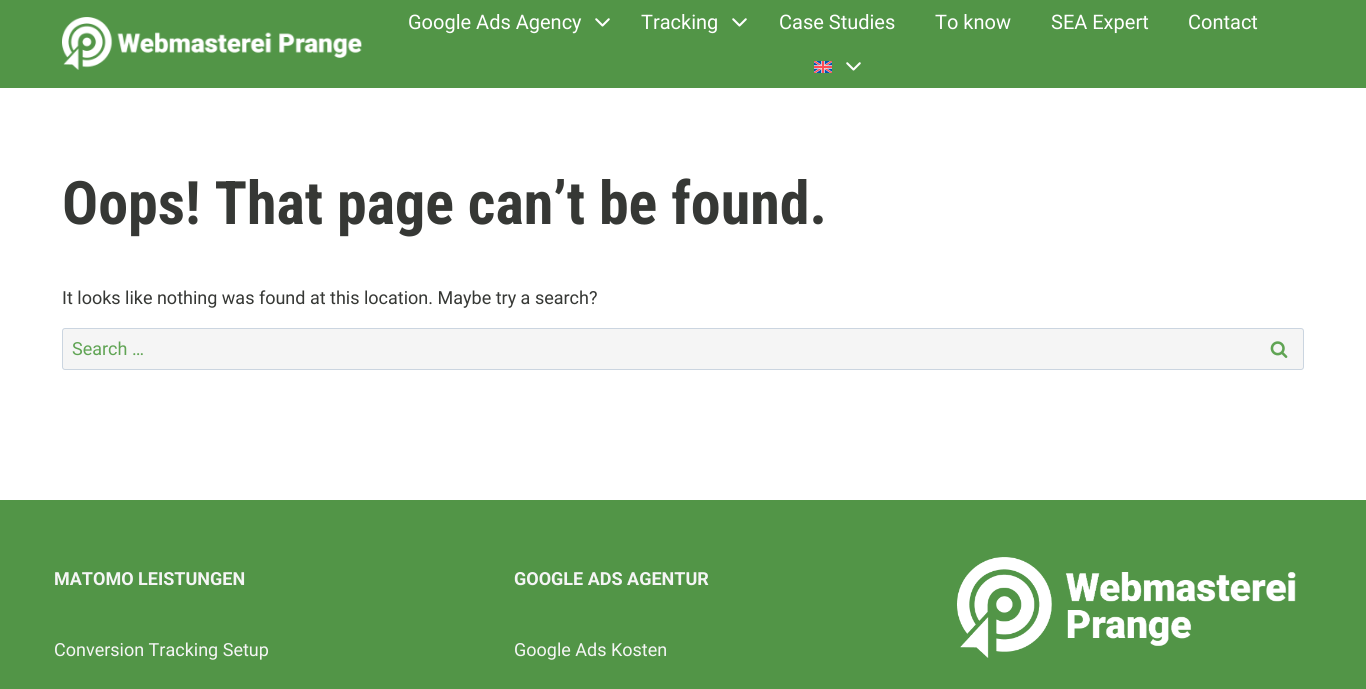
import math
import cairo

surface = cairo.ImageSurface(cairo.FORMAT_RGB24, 1366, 689)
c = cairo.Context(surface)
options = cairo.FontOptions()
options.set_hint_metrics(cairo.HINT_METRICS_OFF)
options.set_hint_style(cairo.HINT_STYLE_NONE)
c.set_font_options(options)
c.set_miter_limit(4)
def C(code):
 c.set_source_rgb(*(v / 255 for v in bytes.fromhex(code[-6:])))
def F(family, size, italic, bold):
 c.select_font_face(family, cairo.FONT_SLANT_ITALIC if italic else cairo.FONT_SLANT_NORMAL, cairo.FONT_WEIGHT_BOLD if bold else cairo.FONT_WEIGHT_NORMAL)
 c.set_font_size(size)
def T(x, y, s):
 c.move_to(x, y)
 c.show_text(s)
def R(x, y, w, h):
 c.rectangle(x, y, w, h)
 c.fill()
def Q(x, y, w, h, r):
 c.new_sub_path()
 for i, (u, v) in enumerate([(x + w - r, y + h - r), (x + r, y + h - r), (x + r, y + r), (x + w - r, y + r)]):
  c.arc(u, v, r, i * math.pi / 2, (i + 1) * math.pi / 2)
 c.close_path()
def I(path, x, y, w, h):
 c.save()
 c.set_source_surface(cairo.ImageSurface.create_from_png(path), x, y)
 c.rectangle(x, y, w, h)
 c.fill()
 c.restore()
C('ffffff')
c.paint()
C('529547')
R(0,0,1366,88)
I('1.png',62,17,300,53)
F('Roboto',20,0,0)
C('ffffff')
T(408,29,'Google Ads Agency')
I('2.png',595,18,15,9)
T(641,29,'Tracking')
I('2.png',732,18,15,9)
T(779,29,'Case Studies')
T(935,29,'To know')
T(1051,29,'SEA Expert')
T(1188,29,'Contact')
I('3.png',814,61,18,12)
I('2.png',846,62,15,9)
F('Roboto Condensed',60,0,1)
C('363835')
T(62,224,'Oops! That page can’t be found.')
F('Roboto',18,0,0)
T(62,304,'It looks like nothing was found at this location. Maybe try a search?')
C('f5f5f5')
Q(62.5,328.5,1241,41,2.5)
c.fill_preserve()
C('cbd5e0')
c.set_line_width(1)
c.stroke()
C('60a454')
T(72,355,'Search …')
I('4.png',1270,341,18,17)
C('529547')
R(0,500,1366,189)
F('Roboto',18,0,1)
C('f5f5f5')
T(54,585,'MATOMO LEISTUNGEN')
F('Roboto',18,0,0)
T(54,656,'Conversion Tracking Setup')
F('Roboto',18,0,1)
T(514,585,'GOOGLE ADS AGENTUR')
F('Roboto',18,0,0)
T(514,656,'Google Ads Kosten')
I('5.png',957,557,339,101)
surface.write_to_png('o.png')
